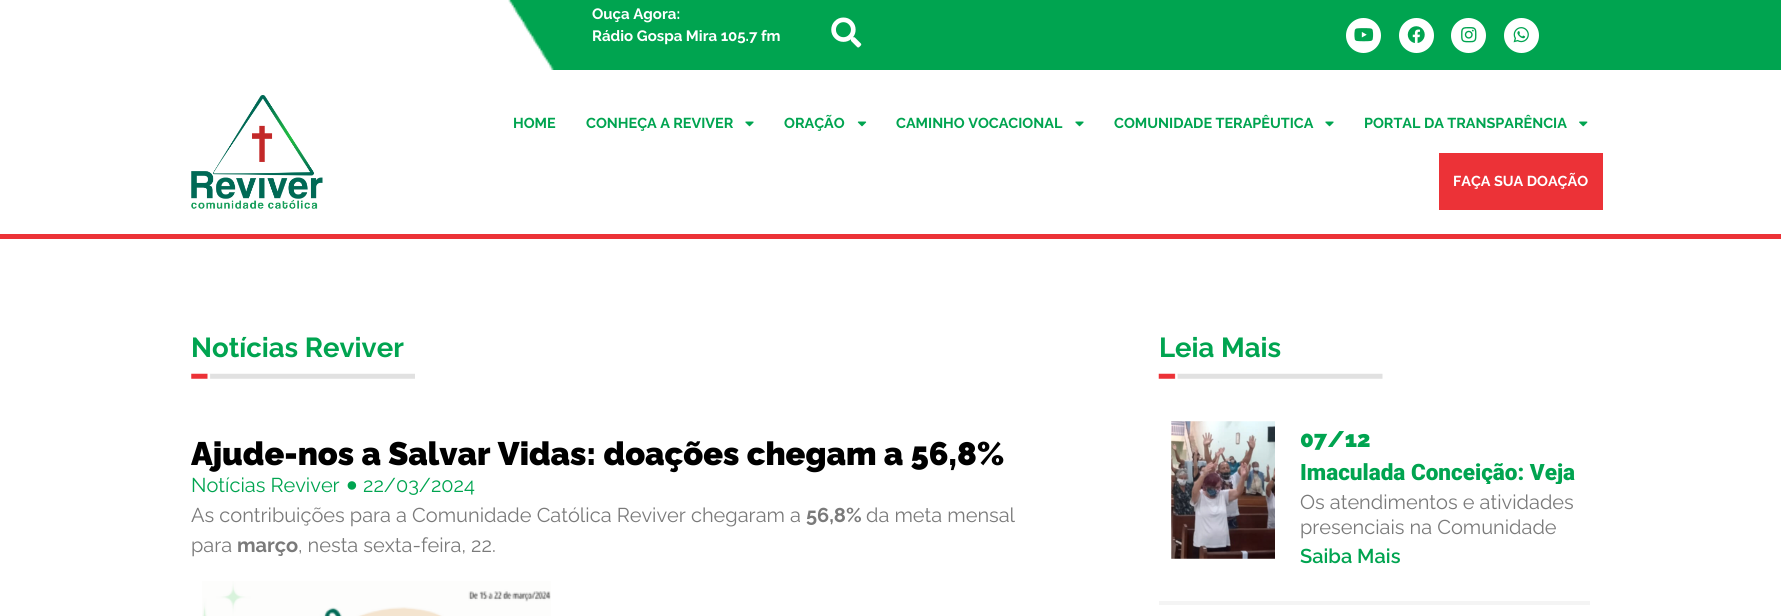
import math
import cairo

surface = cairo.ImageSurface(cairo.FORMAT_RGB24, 1781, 616)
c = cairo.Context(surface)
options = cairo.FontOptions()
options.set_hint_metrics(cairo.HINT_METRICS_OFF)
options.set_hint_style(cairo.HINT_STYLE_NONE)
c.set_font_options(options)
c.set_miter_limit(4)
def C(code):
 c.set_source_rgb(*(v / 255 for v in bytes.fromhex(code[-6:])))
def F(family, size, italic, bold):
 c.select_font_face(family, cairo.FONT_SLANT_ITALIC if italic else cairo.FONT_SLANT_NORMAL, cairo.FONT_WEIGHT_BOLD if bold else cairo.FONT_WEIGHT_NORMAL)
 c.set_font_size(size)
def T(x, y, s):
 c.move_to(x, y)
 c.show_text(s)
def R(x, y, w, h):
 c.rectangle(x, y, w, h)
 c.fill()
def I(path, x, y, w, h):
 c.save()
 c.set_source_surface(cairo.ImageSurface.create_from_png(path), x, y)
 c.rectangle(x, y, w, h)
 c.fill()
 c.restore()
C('ffffff')
c.paint()
I('1.png',508,0,1273,70)
F('Raleway',15,0,1)
C('ffffff')
T(592,19,'Ouça Agora:')
T(592,41,'Rádio Gospa Mira 105.7 fm')
I('2.png',831,17,31,31)
c.arc(1363.5,35.5,17.5,0,2 * math.pi)
c.fill()
I('3.png',1354,28,20,14)
c.arc(1416.5,35.5,17.5,0,2 * math.pi)
c.fill()
I('4.png',1407,26,18,17)
c.arc(1468.5,35.5,17.5,0,2 * math.pi)
c.fill()
I('5.png',1461,27,16,16)
c.arc(1521.5,35.5,17.5,0,2 * math.pi)
c.fill()
I('6.png',1513,27,16,16)
C('ec3237')
R(0,234,1781,5)
I('7.png',191,95,132,114)
F('Raleway',14.4,0,1)
C('00a450')
T(513,128,'HOME')
T(586,128,'CONHEÇA A REVIVER')
I('8.png',745,121,9,6)
T(784,128,'ORAÇÃO')
I('9.png',857,121,10,6)
T(896,128,'CAMINHO VOCACIONAL')
I('8.png',1075,121,9,6)
T(1114,128,'COMUNIDADE TERAPÊUTICA')
I('8.png',1325,121,9,6)
T(1364,128,'PORTAL DA TRANSPARÊNCIA')
I('10.png',1579,121,9,6)
C('ec3237')
R(1439,153,164,57)
C('ffffff')
T(1453,186,'FAÇA SUA DOAÇÃO')
F('Raleway',27.5,0,1)
C('00a450')
T(191,357,'Notícias Reviver')
I('11.png',191,373,224,6)
F('Raleway Black',32.5,0,0)
C('000000')
T(191,465,'Ajude-nos a Salvar Vidas: doações chegam a 56,8%')
F('Raleway',20,0,0)
C('00a450')
T(191,492,'Notícias Reviver')
I('12.png',347,481,10,9)
T(363,492,'22/03/2024')
C('7a7a7a')
T(191,522,'As contribuições para a Comunidade Católica Reviver chegaram a')
F('Raleway',20,0,1)
T(806,522,'56,8%')
F('Raleway',20,0,0)
T(866,522,'da meta mensal')
T(191,552,'para')
F('Raleway',20,0,1)
T(237,552,'março')
F('Raleway',20,0,0)
T(298,552,', nesta sexta-feira, 22.')
I('13.png',202,581,349,35)
F('Raleway',27.5,0,1)
C('00a450')
T(1159,357,'Leia Mais')
I('14.png',1158,373,225,6)
I('15.png',1171,421,104,138)
F('Raleway Black',22.5,0,0)
T(1300,447,'07/12')
c.save()
c.rectangle(1300,461,278,23)
c.clip()
F('Roboto Black',22.5,0,0)
T(1300,480,'Imaculada Conceição: Veja')
c.restore()
F('Raleway',20,0,0)
C('7a7a7a')
T(1300,509,'Os atendimentos e atividades')
T(1300,534,'presenciais na Comunidade')
F('Raleway SemiBold',20,0,0)
C('00a450')
T(1300,563,'Saiba Mais')
C('f4f4f4')
R(1159,601,431,4)
surface.write_to_png('o.png')
